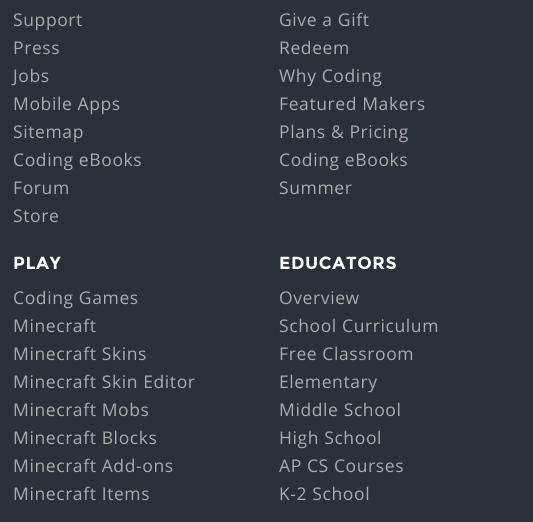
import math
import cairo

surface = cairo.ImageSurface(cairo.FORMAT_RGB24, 533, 522)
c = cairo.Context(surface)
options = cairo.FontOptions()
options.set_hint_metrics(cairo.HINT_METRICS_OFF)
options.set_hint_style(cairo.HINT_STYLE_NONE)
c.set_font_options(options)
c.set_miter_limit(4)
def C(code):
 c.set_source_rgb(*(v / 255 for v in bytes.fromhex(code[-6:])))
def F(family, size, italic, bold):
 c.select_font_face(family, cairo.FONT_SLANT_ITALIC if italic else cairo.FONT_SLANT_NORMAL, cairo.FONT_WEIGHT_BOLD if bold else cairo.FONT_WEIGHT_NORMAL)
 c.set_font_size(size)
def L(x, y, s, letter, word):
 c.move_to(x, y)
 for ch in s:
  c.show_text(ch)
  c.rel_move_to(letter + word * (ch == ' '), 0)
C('293037')
c.paint()
F('Open Sans',17.5,0,0)
C('acacac')
L(13,26,'Support',.6,0)
L(13,54,'Press',.6,0)
L(13,82,'Jobs',.6,0)
L(13,110,'Mobile Apps',.6,0)
L(13,138,'Sitemap',.6,0)
L(13,166,'Coding eBooks',.6,0)
L(13,194,'Forum',.6,0)
L(13,222,'Store',.6,0)
L(279,26,'Give a Gift',.6,0)
L(279,54,'Redeem',.6,0)
L(279,82,'Why Coding',.6,0)
L(279,110,'Featured Makers',.6,0)
L(279,138,'Plans & Pricing',.6,0)
L(279,166,'Coding eBooks',.6,0)
L(279,194,'Summer',.6,0)
F('Montserrat',17.5,0,1)
C('ffffff')
L(13,269,'PLAY',.6,0)
F('Open Sans',17.5,0,0)
C('acacac')
L(13,304,'Coding Games',.6,0)
L(13,332,'Minecraft',.6,0)
L(13,360,'Minecraft Skins',.6,0)
L(13,388,'Minecraft Skin Editor',.6,0)
L(13,416,'Minecraft Mobs',.6,0)
L(13,444,'Minecraft Blocks',.6,0)
L(13,472,'Minecraft Add-ons',.6,0)
L(13,500,'Minecraft Items',.6,0)
F('Montserrat',17.5,0,1)
C('ffffff')
L(279,269,'EDUCATORS',.6,0)
F('Open Sans',17.5,0,0)
C('acacac')
L(279,304,'Overview',.6,0)
L(279,332,'School Curriculum',.6,0)
L(279,360,'Free Classroom',.6,0)
L(279,388,'Elementary',.6,0)
L(279,416,'Middle School',.6,0)
L(279,444,'High School',.6,0)
L(279,472,'AP CS Courses',.6,0)
L(279,500,'K-2 School',.6,0)
surface.write_to_png('o.png')
